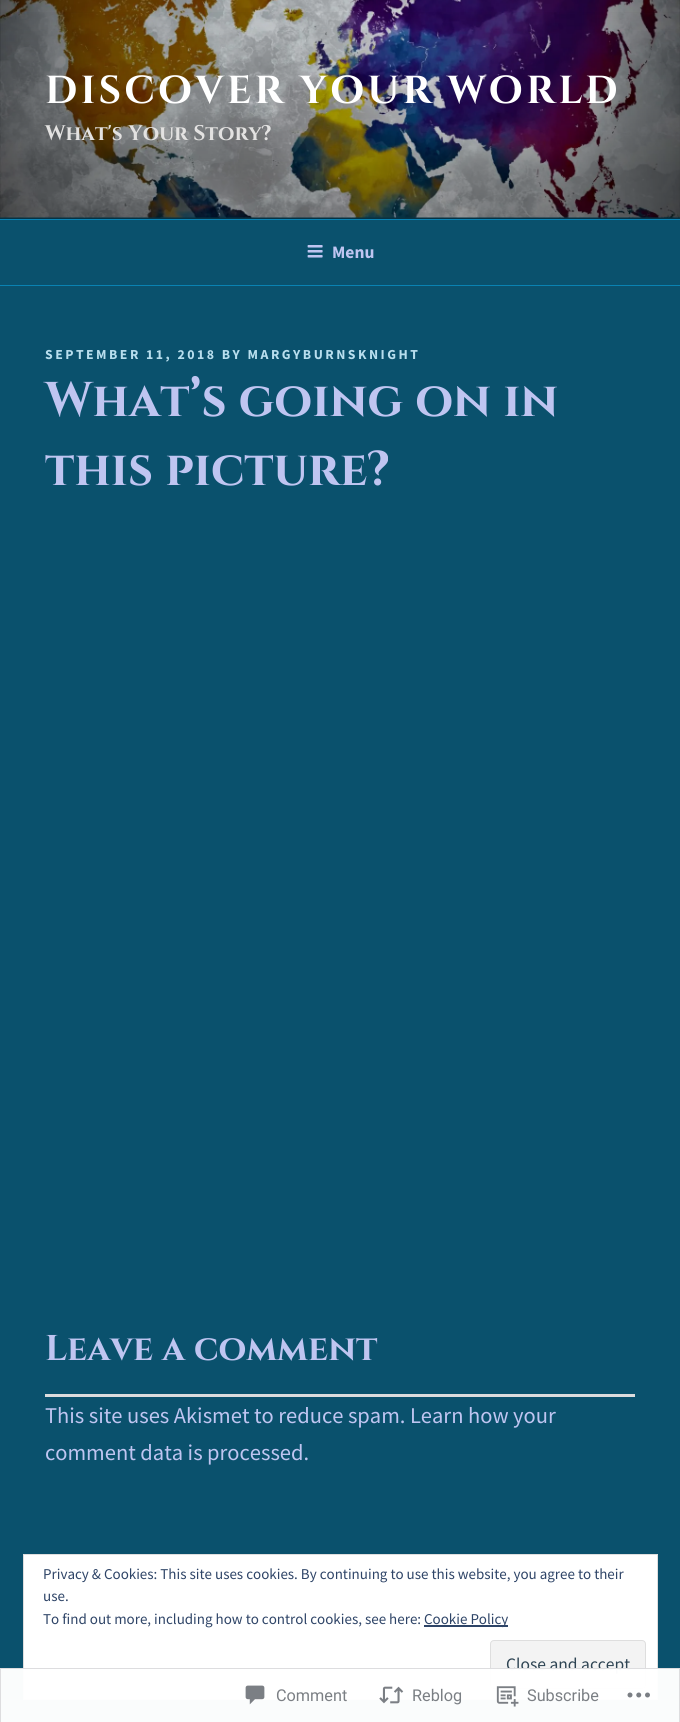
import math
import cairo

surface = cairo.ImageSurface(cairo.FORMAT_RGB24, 680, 1722)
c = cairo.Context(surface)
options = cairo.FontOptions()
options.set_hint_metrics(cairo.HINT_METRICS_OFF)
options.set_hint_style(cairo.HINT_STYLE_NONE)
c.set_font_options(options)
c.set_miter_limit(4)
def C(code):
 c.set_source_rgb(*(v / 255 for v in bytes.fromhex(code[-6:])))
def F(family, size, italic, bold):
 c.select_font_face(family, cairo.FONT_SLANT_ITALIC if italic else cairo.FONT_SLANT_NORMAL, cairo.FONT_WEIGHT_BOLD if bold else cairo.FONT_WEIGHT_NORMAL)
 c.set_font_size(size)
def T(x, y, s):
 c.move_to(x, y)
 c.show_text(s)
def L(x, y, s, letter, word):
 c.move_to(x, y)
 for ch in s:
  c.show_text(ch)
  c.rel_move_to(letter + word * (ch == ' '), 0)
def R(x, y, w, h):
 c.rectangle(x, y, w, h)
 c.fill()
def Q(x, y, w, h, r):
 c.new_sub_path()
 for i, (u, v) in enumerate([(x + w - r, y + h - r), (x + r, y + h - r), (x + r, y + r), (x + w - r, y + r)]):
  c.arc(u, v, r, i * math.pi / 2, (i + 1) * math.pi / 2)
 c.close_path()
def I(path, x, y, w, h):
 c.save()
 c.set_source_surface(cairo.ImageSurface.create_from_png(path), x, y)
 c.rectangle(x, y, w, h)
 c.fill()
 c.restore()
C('0a516d')
c.paint()
C('094861')
R(0,217,680,2)
I('1.png',0,0,680,218)
gradient = cairo.LinearGradient(340,0,340,219)
gradient.add_color_stop_rgba(0,0,0,0,0)
gradient.add_color_stop_rgba(.75,0,0,0,.3)
gradient.add_color_stop_rgba(1,0,0,0,.3)
c.set_source(gradient)
R(0,12,680,207)
F('Cinzel',39,0,1)
C('ffffff')
L(45,103,'DISCOVER YOUR WORLD',3.1,0)
F('Cinzel',21.1,0,1)
C('e3e2e1')
T(45,140,'What\'s Your Story?')
C('0a82b2')
R(0,219,680,1)
R(0,285,680,1)
I('2.png',307,245,16,13)
F('Source Sans Pro',17.5,0,1)
C('bfc5f1')
T(332,258,'Menu')
F('Source Sans Pro',13.75,0,1)
C('b8deee')
L(45,359,'SEPTEMBER 11, 2018 BY MARGYBURNSKNIGHT',2.5,0)
F('Cinzel',48.75,0,1)
C('bfc5f1')
T(45,416,'What’s going on in')
T(45,485,'this picture?')
F('Cinzel',35.75,0,1)
T(45,1360,'Leave a comment')
C('dcdcde')
R(45,1394,590,3)
F('Source Sans Pro',22.5,0,0)
C('bfc5f1')
T(45,1423,'This site uses Akismet to reduce spam. Learn how your')
T(45,1460,'comment data is processed.')
C('ffffff')
c.rectangle(23.5,1554.5,634,145)
c.fill_preserve()
C('dedede')
c.set_line_width(1)
c.stroke()
F('Source Sans Pro',15,0,0)
C('2e4467')
T(43,1579,'Privacy & Cookies: This site uses cookies. By continuing to use this website, you agree to their')
T(43,1601,'use.')
T(43,1624,'To find out more, including how to control cookies, see here:')
R(424,1625,84,2)
T(424,1624,'Cookie Policy')
C('f3f3f3')
Q(490.5,1640.5,155,48,3.5)
c.fill_preserve()
C('dedede')
c.stroke()
F('Source Sans Pro',17.5,0,0)
C('2e4453')
T(506,1670,'Close and accept')
c.set_source_rgba(1,1,1,0.98)
R(0,1668,680,54)
c.rectangle(.5,1668.5,679,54)
c.set_source_rgba(0.863,0.863,0.871,0.98)
c.stroke()
I('3.png',245,1685,20,20)
F('Roboto',16.25,0,0)
C('7b7f84')
T(276,1701,'Comment')
I('4.png',379,1686,25,18)
T(412,1701,'Reblog')
I('5.png',496,1686,23,21)
T(527,1701,'Subscribe')
I('6.png',627,1692,23,6)
surface.write_to_png('o.png')
